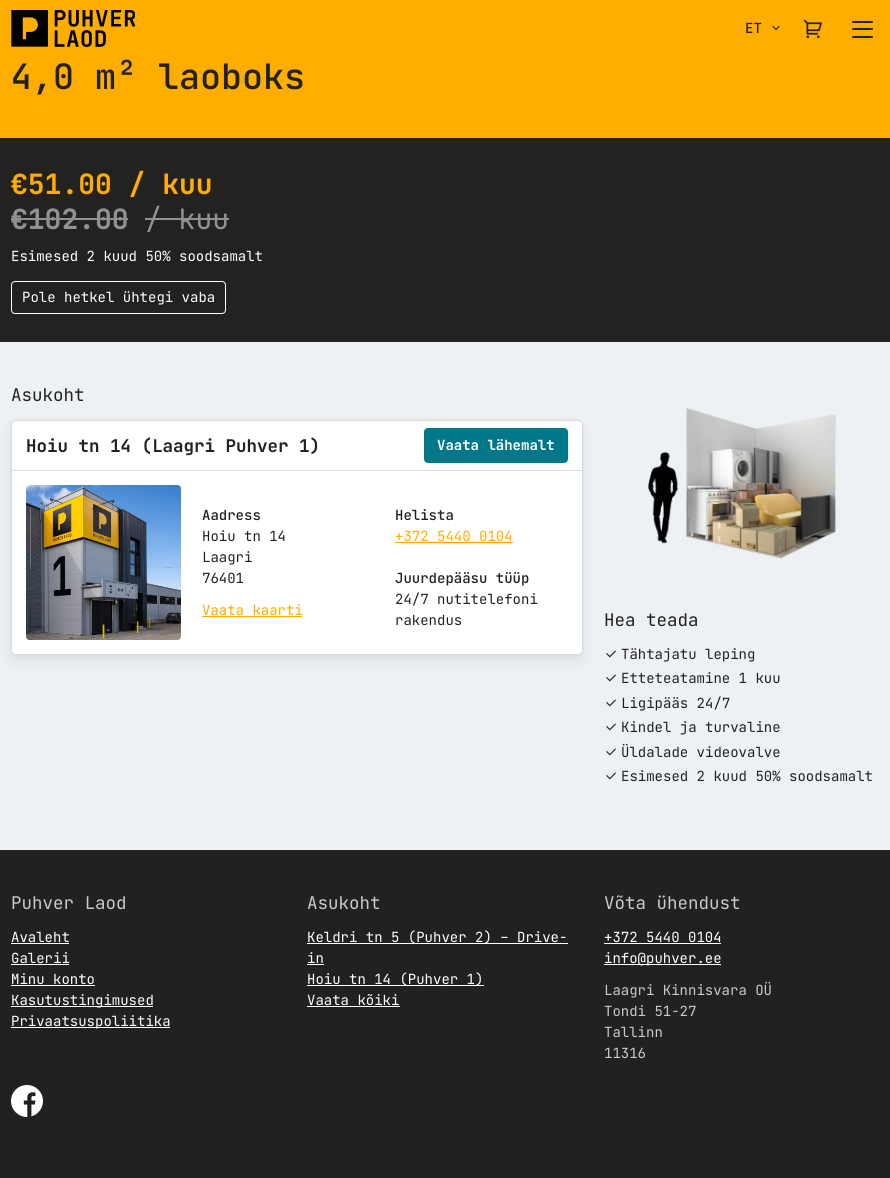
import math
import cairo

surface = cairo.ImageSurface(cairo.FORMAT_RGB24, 890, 1178)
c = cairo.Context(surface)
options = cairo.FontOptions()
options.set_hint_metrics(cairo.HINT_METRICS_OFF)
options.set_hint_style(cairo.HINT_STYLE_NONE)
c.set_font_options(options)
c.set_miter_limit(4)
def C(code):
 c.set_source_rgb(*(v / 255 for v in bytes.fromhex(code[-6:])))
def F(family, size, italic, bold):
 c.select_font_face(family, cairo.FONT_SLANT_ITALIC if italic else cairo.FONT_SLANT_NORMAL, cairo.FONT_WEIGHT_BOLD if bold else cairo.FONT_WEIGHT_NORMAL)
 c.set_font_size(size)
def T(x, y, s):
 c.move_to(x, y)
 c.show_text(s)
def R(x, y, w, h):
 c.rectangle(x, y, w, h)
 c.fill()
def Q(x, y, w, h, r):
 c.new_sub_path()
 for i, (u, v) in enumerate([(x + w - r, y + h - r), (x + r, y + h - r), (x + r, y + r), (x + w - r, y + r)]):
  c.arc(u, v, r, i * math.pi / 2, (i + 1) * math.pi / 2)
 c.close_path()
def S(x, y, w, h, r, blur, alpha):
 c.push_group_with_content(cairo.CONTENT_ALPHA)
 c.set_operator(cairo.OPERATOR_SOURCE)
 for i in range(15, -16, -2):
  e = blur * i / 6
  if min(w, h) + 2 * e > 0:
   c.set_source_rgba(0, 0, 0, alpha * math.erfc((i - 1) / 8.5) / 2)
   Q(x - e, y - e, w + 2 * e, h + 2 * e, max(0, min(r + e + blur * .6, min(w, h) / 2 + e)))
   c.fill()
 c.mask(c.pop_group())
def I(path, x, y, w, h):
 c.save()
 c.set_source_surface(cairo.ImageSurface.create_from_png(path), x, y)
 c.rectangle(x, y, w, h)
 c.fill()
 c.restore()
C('eef1f4')
c.paint()
C('ffae00')
R(0,0,890,138)
I('1.png',11,10,124,37)
F('JetBrains Mono SemiBold',14,0,0)
C('222120')
T(745,33,'ET')
I('2.png',772,25,8,6)
I('3.png',803,19,19,20)
Q(852,21,21,2,1)
c.fill()
Q(852,28,21,2,1)
c.fill()
Q(852,36,21,2,1)
c.fill()
F('JetBrains Mono SemiBold',35,0,0)
T(11,89,'4,0 m² laoboks')
C('232221')
R(0,138,890,204)
F('JetBrains Mono',28,0,1)
C('ffae00')
T(11,194,'€51.00 / kuu')
C('919190')
T(11,229,'€102.00')
R(11,218,117,2)
F('JetBrains Mono',28,0,0)
T(145,229,'/ kuu')
R(145,218,84,2)
F('JetBrains Mono',14,0,0)
C('ffffff')
T(11,261,'Esimesed 2 kuud 50% soodsamalt')
Q(11.5,281.5,214,32,3.5)
c.set_line_width(1)
c.stroke()
T(22,302,'Pole hetkel ühtegi vaba')
F('JetBrains Mono',17.5,0,0)
C('222120')
T(11,401,'Asukoht')
Q(10.5,419.5,573,236,5.5)
C('e9ecef')
c.stroke()
C('0a0a0a')
S(13,429,568,231,3,7,.1)
C('ffffff')
Q(11.5,420.5,571,234,4.5)
c.fill_preserve()
C('dbdbdb')
c.stroke()
F('JetBrains Mono',17.5,0,1)
C('222120')
T(26,452,'Hoiu tn 14 (Laagri Puhver 1)')
C('00788a')
Q(425,429,142,33,3)
c.fill_preserve()
c.set_line_width(2)
c.stroke()
F('JetBrains Mono',14,0,1)
C('ffffff')
T(437,450,'Vaata lähemalt')
C('dbdbdb')
R(12,470,570,1)
I('4.png',26,485,155,155)
F('JetBrains Mono SemiBold',14,0,0)
C('222120')
T(202,520,'Aadress')
F('JetBrains Mono',14,0,0)
T(202,541,'Hoiu tn 14')
T(202,562,'Laagri')
T(202,583,'76401')
C('ffae00')
T(202,615,'Vaata kaarti')
R(202,616,100,1)
F('JetBrains Mono SemiBold',14,0,0)
C('222120')
T(395,520,'Helista')
F('JetBrains Mono',14,0,0)
C('ffae00')
T(395,541,'+372 5440 0104')
R(395,542,118,1)
F('JetBrains Mono SemiBold',14,0,0)
C('222120')
T(395,583,'Juurdepääsu tüüp')
F('JetBrains Mono',14,0,0)
T(395,604,'24/7 nutitelefoni')
T(395,625,'rakendus')
I('5.png',648,408,188,150)
F('JetBrains Mono',17.5,0,0)
T(604,626,'Hea teada')
I('6.png',606,650,10,8)
F('JetBrains Mono',14,0,0)
T(621,659,'Tähtajatu leping')
I('6.png',606,674,10,8)
T(621,683,'Etteteatamine 1 kuu')
I('6.png',606,699,10,8)
T(621,708,'Ligipääs 24/7')
I('6.png',606,723,10,8)
T(621,732,'Kindel ja turvaline')
I('6.png',606,748,10,8)
T(621,757,'Üldalade videovalve')
I('6.png',606,772,10,8)
T(621,781,'Esimesed 2 kuud 50% soodsamalt')
R(0,850,890,328)
F('JetBrains Mono',17.5,0,0)
C('cacaca')
T(11,909,'Puhver Laod')
F('JetBrains Mono',14,0,0)
C('ffffff')
T(11,942,'Avaleht')
R(11,943,58,1)
T(11,963,'Galerii')
R(11,964,58,1)
T(11,984,'Minu konto')
R(11,985,84,1)
R(11,1006,142,1)
T(11,1005,'Kasutustingimused')
R(11,1027,159,1)
T(11,1026,'Privaatsuspoliitika')
F('JetBrains Mono',17.5,0,0)
C('cacaca')
T(307,909,'Asukoht')
C('ffffff')
R(307,943,261,1)
F('JetBrains Mono',14,0,0)
T(307,942,'Keldri tn 5 (Puhver 2) – Drive-')
T(307,963,'in')
R(307,964,17,1)
R(307,985,177,1)
T(307,984,'Hoiu tn 14 (Puhver 1)')
T(307,1005,'Vaata kõiki')
R(307,1006,93,1)
F('JetBrains Mono',17.5,0,0)
C('cacaca')
T(604,909,'Võta ühendust')
F('JetBrains Mono',14,0,0)
C('ffffff')
T(604,942,'+372 5440 0104')
R(604,943,117,1)
R(604,964,117,1)
T(604,963,'info@puhver.ee')
C('cacaca')
T(604,995,'Laagri Kinnisvara OÜ')
T(604,1016,'Tondi 51-27')
T(604,1037,'Tallinn')
T(604,1058,'11316')
I('7.png',11,1085,32,32)
surface.write_to_png('o.png')
